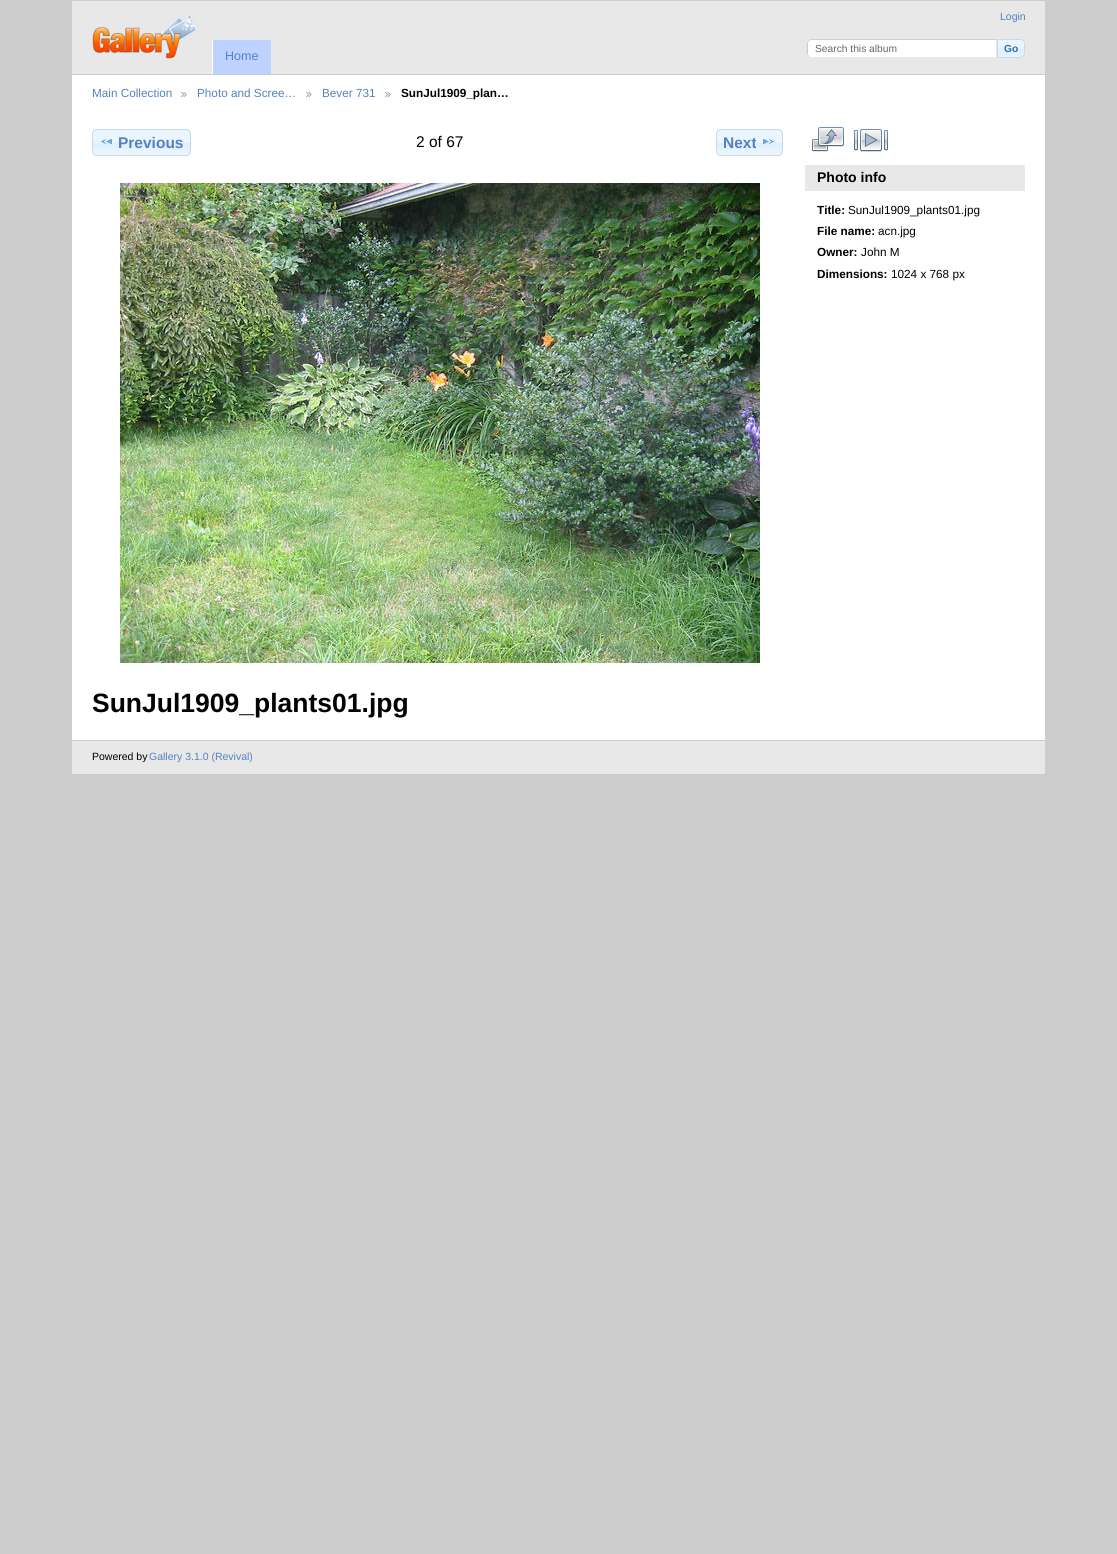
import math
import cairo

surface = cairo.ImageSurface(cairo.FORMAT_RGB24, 1117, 1554)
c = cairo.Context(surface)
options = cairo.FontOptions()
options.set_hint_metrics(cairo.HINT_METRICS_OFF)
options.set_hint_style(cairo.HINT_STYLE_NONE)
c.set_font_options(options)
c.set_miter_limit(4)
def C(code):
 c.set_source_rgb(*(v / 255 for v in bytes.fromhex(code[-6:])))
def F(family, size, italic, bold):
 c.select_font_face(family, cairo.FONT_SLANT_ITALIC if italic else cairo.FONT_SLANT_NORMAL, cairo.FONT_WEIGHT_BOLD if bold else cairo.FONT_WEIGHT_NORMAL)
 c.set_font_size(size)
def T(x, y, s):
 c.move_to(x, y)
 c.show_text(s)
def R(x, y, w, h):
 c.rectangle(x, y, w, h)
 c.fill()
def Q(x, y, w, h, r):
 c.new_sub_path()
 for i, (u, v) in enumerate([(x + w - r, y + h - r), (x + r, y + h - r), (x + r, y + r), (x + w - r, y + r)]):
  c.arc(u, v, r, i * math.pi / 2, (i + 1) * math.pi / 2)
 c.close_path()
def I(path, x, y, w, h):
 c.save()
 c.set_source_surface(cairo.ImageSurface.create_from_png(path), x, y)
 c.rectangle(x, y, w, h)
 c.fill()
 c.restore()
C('cccccc')
c.paint()
C('ffffff')
R(72,75,973,665)
C('e8e8e8')
R(72,1,973,73)
I('1.png',92,15,106,44)
F('Liberation Sans',10.5,0,0)
C('5382bf')
T(1000,20,'Login')
C('ffffff')
c.new_path()
c.move_to(812,39)
c.line_to(997,39)
c.line_to(997,58)
c.line_to(812,58)
c.curve_to(809,58,807,56,807,53)
c.line_to(807,44)
c.curve_to(807,41,809,39,812,39)
c.close_path()
c.fill()
C('cccccc')
c.new_path()
c.move_to(812,39)
c.curve_to(810,39,809,40,808,40)
c.line_to(809,41)
c.curve_to(810,40,811,40,812,40)
c.line_to(996,40)
c.line_to(997,39)
c.close_path()
c.fill()
C('e8e8e8')
c.new_path()
c.move_to(997,39)
c.line_to(996,40)
c.line_to(996,57)
c.line_to(997,58)
c.close_path()
c.fill()
c.new_path()
c.move_to(997,58)
c.line_to(996,57)
c.line_to(811,57)
c.line_to(809,56)
c.line_to(808,57)
c.curve_to(809,58,810,58,812,58)
c.close_path()
c.fill()
C('cccccc')
c.new_path()
c.move_to(807,44)
c.curve_to(807,47,806,54.5,808.5,56.5)
c.line_to(809,56)
c.line_to(808,54)
c.line_to(808,43.5)
c.curve_to(808,42.5,808.5,41.5,809,41)
c.line_to(808.5,40.5)
c.curve_to(807.5,41,807,42.5,807,44)
c.close_path()
c.fill()
F('Liberation Sans',10.25,0,0)
C('666666')
T(815,52,'Search this album')
I('2.png',998,39,27,19)
c.new_path()
c.move_to(997.5,39.5)
c.line_to(1020,39.5)
c.curve_to(1022.5,39.5,1024.5,41.5,1024.5,44)
c.line_to(1024.5,53)
c.curve_to(1024.5,55.5,1022.5,57.5,1020,57.5)
c.line_to(997.5,57.5)
c.close_path()
C('c5dbec')
c.set_line_width(1)
c.stroke()
F('Liberation Sans',10.25,0,1)
C('2e6e9e')
T(1004,52,'Go')
C('bdd2ff')
R(212,39,59,35)
C('dee9ff')
c.new_path()
c.move_to(212,39)
c.line_to(271,39)
c.line_to(271,40)
c.line_to(213,40)
c.close_path()
c.fill()
C('ffffff')
c.new_path()
c.move_to(212,74)
c.line_to(212,39)
c.line_to(213,40)
c.line_to(213,74)
c.close_path()
c.fill()
F('Liberation Sans',12.5,0,0)
C('5382bf')
T(225,60,'Home')
F('Liberation Sans',11.75,0,0)
T(92,97,'Main Collection')
I('3.png',181,92,6,5)
T(197,97,'Photo and Scree…')
I('3.png',306,92,6,5)
T(322,97,'Bever 731')
I('3.png',385,92,6,5)
F('Liberation Sans',11.75,0,1)
C('000000')
T(401,97,'SunJul1909_plan…')
I('4.png',92,129,99,27)
Q(92.5,129.5,98,26,4.5)
C('c5dbec')
c.stroke()
I('5.png',101,139,11,5)
F('Liberation Sans',15.5,0,1)
C('5382bf')
T(118,148,'Previous')
F('Liberation Sans',15.5,0,0)
C('000000')
T(416,147,'2 of 67')
I('6.png',716,129,67,27)
Q(716.5,129.5,66,26,4.5)
C('c5dbec')
c.stroke()
F('Liberation Sans',15.5,0,1)
C('5382bf')
T(723,148,'Next')
I('7.png',763,139,11,5)
I('8.png',120,183,640,480)
F('Liberation Sans',26.5,0,1)
C('000000')
T(92,712,'SunJul1909_plants01.jpg')
I('9.png',812,127,32,25)
I('10.png',854,129,34,23)
C('e8e8e8')
R(805,165,220,26)
F('Liberation Sans',14,0,1)
C('000000')
T(817,182,'Photo info')
F('Liberation Sans',11.75,0,1)
T(817,214,'Title:')
F('Liberation Sans',11.75,0,0)
T(848,214,'SunJul1909_plants01.jpg')
F('Liberation Sans',11.75,0,1)
T(817,235,'File name:')
F('Liberation Sans',11.75,0,0)
T(878,235,'acn.jpg')
F('Liberation Sans',11.75,0,1)
T(817,256,'Owner:')
F('Liberation Sans',11.75,0,0)
T(861,256,'John M')
F('Liberation Sans',11.75,0,1)
T(817,278,'Dimensions:')
F('Liberation Sans',11.75,0,0)
T(891,278,'1024 x 768 px')
C('e8e8e8')
R(72,741,973,33)
F('Liberation Sans',10.5,0,0)
C('000000')
T(92,760,'Powered by')
C('5382bf')
T(149,760,'Gallery 3.1.0 (Revival)')
surface.write_to_png('o.png')
